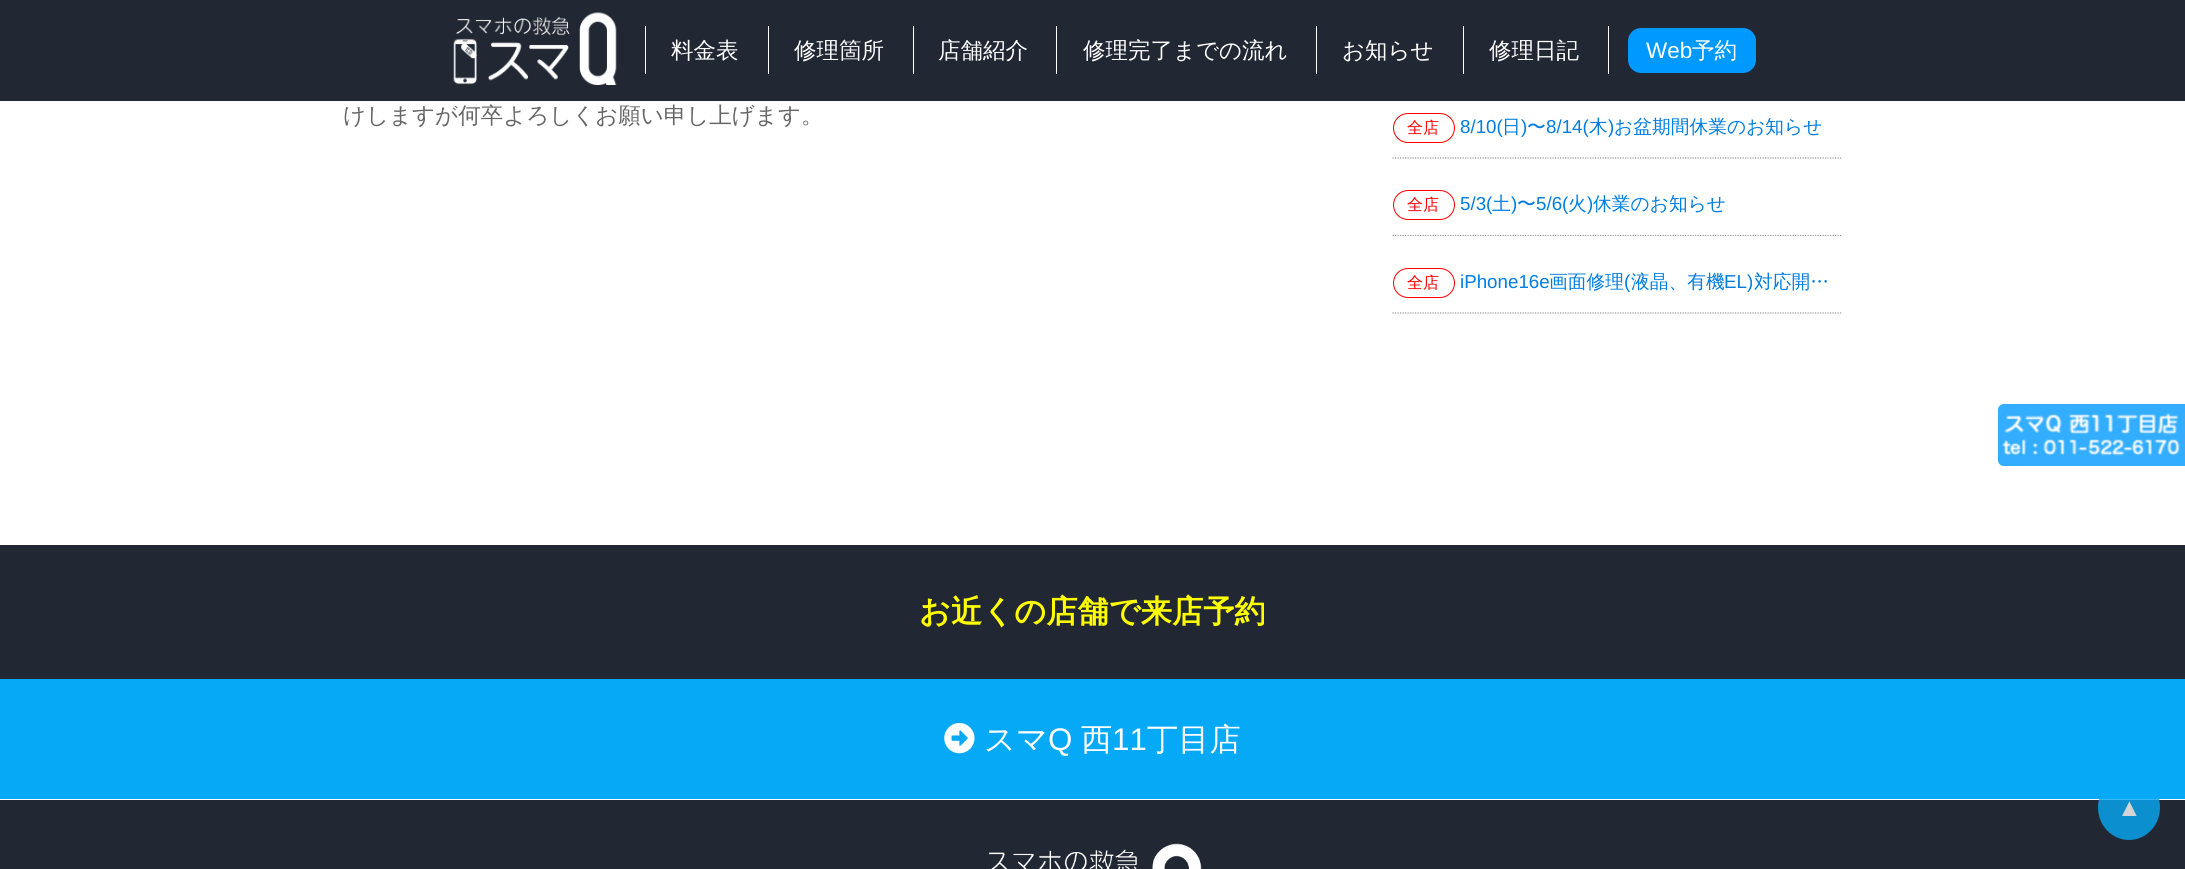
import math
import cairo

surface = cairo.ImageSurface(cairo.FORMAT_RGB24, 2185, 869)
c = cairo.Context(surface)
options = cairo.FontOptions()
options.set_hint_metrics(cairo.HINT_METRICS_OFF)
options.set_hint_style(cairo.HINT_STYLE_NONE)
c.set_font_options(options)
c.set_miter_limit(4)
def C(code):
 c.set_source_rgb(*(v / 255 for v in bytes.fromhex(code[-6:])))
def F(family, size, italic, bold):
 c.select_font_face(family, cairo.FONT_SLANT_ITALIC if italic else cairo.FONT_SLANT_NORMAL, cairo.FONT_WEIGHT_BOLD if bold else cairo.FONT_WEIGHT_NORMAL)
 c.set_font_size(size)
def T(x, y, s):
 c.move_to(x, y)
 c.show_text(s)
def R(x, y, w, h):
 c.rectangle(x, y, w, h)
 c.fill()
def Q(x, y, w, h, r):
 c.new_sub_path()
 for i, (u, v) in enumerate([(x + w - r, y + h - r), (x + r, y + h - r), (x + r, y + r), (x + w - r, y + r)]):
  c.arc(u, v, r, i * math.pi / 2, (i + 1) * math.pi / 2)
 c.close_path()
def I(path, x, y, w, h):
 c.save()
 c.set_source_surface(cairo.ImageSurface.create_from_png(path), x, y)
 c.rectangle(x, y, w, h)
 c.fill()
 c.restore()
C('ffffff')
c.paint()
C('212733')
R(0,0,2185,101)
I('1.png',453,12,164,73)
C('ffffff')
R(645,26,1,48)
F('WenQuanYi Zen Hei Medium',22.5,0,0)
T(671,58,'料金表')
R(768,26,1,48)
T(794,58,'修理箇所')
R(913,26,1,48)
T(938,58,'店舗紹介')
R(1056,26,1,48)
T(1083,58,'修理完了までの流れ')
R(1316,26,1,48)
T(1342,58,'お知らせ')
R(1463,26,1,48)
T(1489,58,'修理日記')
R(1608,26,1,48)
C('0099ff')
Q(1628,28,128,45,13)
c.fill()
F('Liberation Sans',22.5,0,0)
C('ffffff')
T(1646,58,'Web')
F('WenQuanYi Zen Hei Medium',22.5,0,0)
T(1692,58,'予約')
C('666666')
T(343,123,'けしますが何卒よろしくお願い申し上げます。')
c.new_path()
c.move_to(1392.5,158)
c.line_to(1842.5,158)
C('999999')
c.set_line_width(1.2)
c.set_dash([1.25,1.25])
c.stroke()
Q(1393.5,113.5,61,29,14.5)
C('ff0000')
c.set_line_width(1)
c.set_dash([])
c.stroke()
F('WenQuanYi Zen Hei Medium',16,0,0)
T(1407,133,'全店')
F('Liberation Sans',18.75,0,0)
C('007de1')
T(1460,133,'8/10(')
F('WenQuanYi Zen Hei Medium',18.75,0,0)
T(1502,133,'日')
F('Liberation Sans',18.75,0,0)
T(1521,133,')')
F('WenQuanYi Zen Hei Medium',18.75,0,0)
T(1527,133,'〜')
F('Liberation Sans',18.75,0,0)
T(1546,133,'8/14(')
F('WenQuanYi Zen Hei Medium',18.75,0,0)
T(1589,133,'木')
F('Liberation Sans',18.75,0,0)
T(1608,133,')')
F('WenQuanYi Zen Hei Medium',18.75,0,0)
T(1614,133,'お盆期間休業のお知らせ')
c.new_path()
c.move_to(1392.5,235.5)
c.line_to(1842.5,235.5)
C('999999')
c.set_line_width(1.2)
c.set_dash([1.25,1.25])
c.stroke()
Q(1393.5,190.5,61,29,14.5)
C('ff0000')
c.set_line_width(1)
c.set_dash([])
c.stroke()
F('WenQuanYi Zen Hei Medium',16,0,0)
T(1407,210,'全店')
F('Liberation Sans',18.75,0,0)
C('007de1')
T(1460,210,'5/3(')
F('WenQuanYi Zen Hei Medium',18.75,0,0)
T(1492,210,'土')
F('Liberation Sans',18.75,0,0)
T(1511,210,')')
F('WenQuanYi Zen Hei Medium',18.75,0,0)
T(1517,210,'〜')
F('Liberation Sans',18.75,0,0)
T(1536,210,'5/6(')
F('WenQuanYi Zen Hei Medium',18.75,0,0)
T(1568,210,'火')
F('Liberation Sans',18.75,0,0)
T(1587,210,')')
F('WenQuanYi Zen Hei Medium',18.75,0,0)
T(1593,210,'休業のお知らせ')
c.new_path()
c.move_to(1392.5,313)
c.line_to(1842.5,313)
C('999999')
c.set_line_width(1.2)
c.set_dash([1.25,1.25])
c.stroke()
Q(1393.5,268.5,61,29,14.5)
C('ff0000')
c.set_line_width(1)
c.set_dash([])
c.stroke()
F('WenQuanYi Zen Hei Medium',16,0,0)
T(1407,288,'全店')
F('Liberation Sans',18.75,0,0)
C('007de1')
T(1460,288,'iPhone16e')
F('WenQuanYi Zen Hei Medium',18.75,0,0)
T(1549,288,'画面修理')
F('Liberation Sans',18.75,0,0)
T(1624,288,'(')
F('WenQuanYi Zen Hei Medium',18.75,0,0)
T(1631,288,'液晶、有機')
F('Liberation Sans',18.75,0,0)
T(1724,288,'EL)')
F('WenQuanYi Zen Hei Medium',18.75,0,0)
T(1754,288,'対応開…')
C('33adff')
c.new_path()
c.move_to(2004,404)
c.line_to(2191,404)
c.line_to(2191,466)
c.line_to(2004,466)
c.curve_to(2000.5,466,1998,463.5,1998,460)
c.line_to(1998,410)
c.curve_to(1998,406.5,2000.5,404,2004,404)
c.close_path()
c.fill()
I('2.png',2002,413,183,46)
C('212733')
R(0,545,2185,134)
F('WenQuanYi Zen Hei',31.25,0,1)
C('ffff00')
T(919,622,'お近くの店舗で来店予約')
C('05a9f5')
R(0,679,2185,120)
I('3.png',944,723,31,31)
F('WenQuanYi Zen Hei Medium',31.25,0,0)
C('ffffff')
T(984,750,'スマ')
F('Liberation Sans',31.25,0,0)
T(1048,750,'Q')
F('WenQuanYi Zen Hei Medium',31.25,0,0)
T(1081,750,'西')
F('Liberation Sans',31.25,0,0)
T(1112,750,'11')
F('WenQuanYi Zen Hei Medium',31.25,0,0)
T(1147,750,'丁目店')
C('212733')
R(0,800,2185,69)
I('4.png',988,843,214,26)
c.set_source_rgba(0.02,0.663,0.961,0.8)
c.new_path()
c.move_to(2129,775)
c.curve_to(2146,775,2160,789.5,2160,807.5)
c.curve_to(2160,825.5,2146,840,2129,840)
c.curve_to(2112,840,2098,825.5,2098,807.5)
c.curve_to(2098,789.5,2112,775,2129,775)
c.close_path()
c.fill()
F('Liberation Sans',25,0,0)
C('d3d4d6')
T(2117,816,'▲')
surface.write_to_png('o.png')
